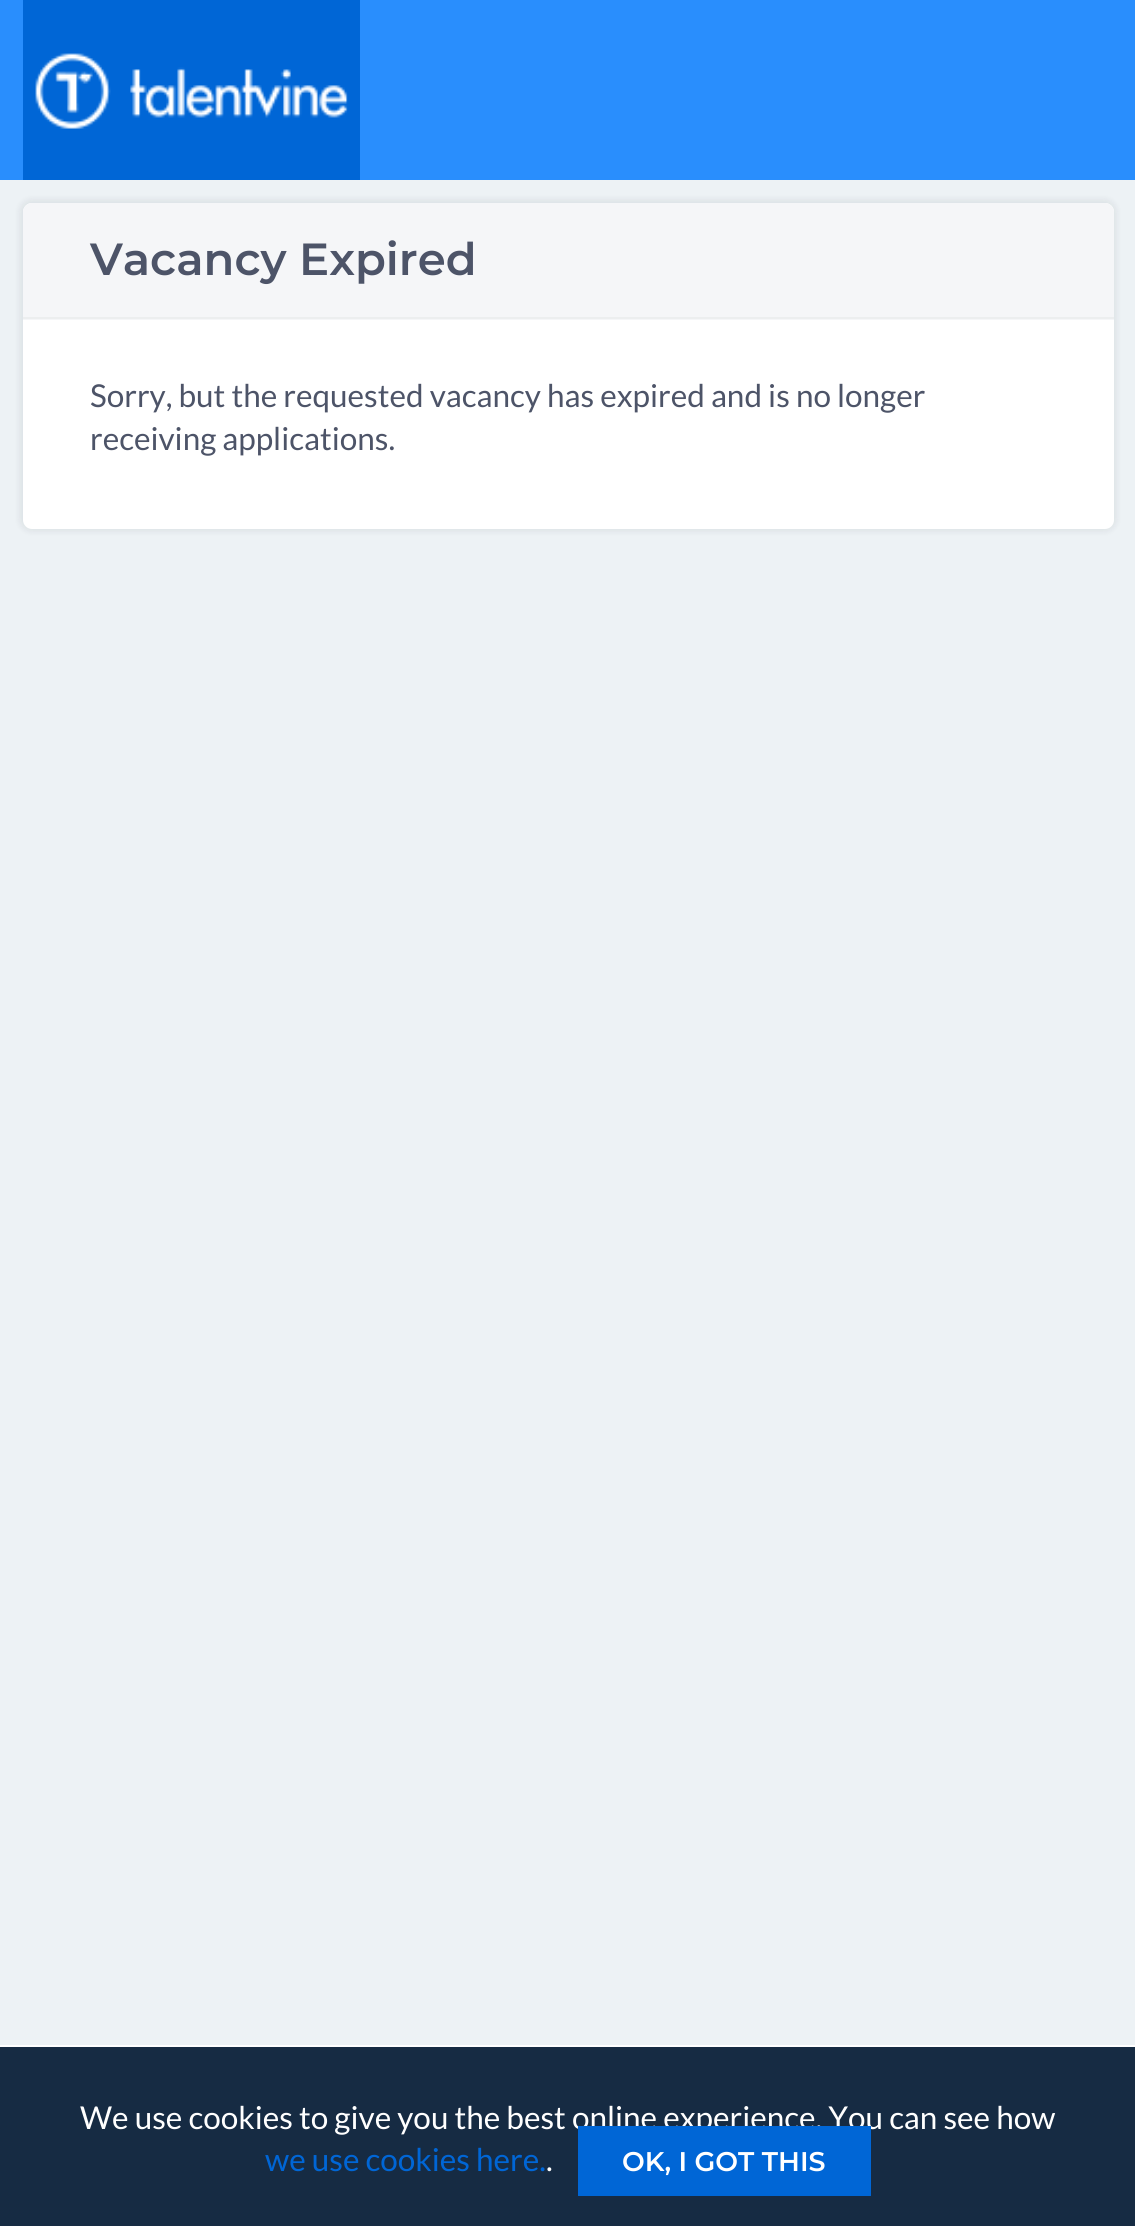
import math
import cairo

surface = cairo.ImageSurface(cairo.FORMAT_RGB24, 1135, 2226)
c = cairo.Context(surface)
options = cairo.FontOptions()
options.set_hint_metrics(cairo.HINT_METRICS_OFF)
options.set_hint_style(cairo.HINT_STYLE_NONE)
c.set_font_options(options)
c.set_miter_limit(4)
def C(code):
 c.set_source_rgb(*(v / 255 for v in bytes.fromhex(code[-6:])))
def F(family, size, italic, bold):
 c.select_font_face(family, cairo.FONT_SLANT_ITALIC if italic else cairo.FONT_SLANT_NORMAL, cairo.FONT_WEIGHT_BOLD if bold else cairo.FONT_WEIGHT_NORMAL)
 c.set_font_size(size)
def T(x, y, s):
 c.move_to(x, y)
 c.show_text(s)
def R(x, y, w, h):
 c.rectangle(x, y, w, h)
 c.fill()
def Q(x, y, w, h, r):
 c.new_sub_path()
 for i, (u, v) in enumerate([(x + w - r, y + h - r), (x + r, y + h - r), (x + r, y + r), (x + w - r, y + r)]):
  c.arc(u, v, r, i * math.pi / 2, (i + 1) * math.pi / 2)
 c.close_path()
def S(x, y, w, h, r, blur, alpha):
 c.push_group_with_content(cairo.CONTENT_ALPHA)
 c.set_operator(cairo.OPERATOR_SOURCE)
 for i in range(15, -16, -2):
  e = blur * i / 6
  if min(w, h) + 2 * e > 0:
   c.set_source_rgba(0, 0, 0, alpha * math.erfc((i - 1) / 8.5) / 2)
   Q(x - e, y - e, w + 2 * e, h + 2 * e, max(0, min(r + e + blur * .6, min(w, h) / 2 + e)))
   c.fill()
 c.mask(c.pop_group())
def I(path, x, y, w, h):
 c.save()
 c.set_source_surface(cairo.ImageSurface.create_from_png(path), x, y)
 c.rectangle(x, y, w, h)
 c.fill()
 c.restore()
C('edf2f5')
c.paint()
C('298efd')
R(0,0,1135,180)
C('0066d6')
R(23,0,337,180)
I('1.png',35,53,313,76)
C('000d1c')
S(20,200,1096,331,11,3.5,.08)
C('ffffff')
Q(23,203,1091,326,9)
c.fill()
C('f5f6f8')
c.new_path()
c.move_to(32,203)
c.line_to(1105,203)
c.curve_to(1110,203,1114,207,1114,212)
c.line_to(1114,320)
c.line_to(23,320)
c.line_to(23,212)
c.curve_to(23,207,27,203,32,203)
c.close_path()
c.fill()
C('eceeef')
R(23,317,1091,2)
F('Montserrat SemiBold',45,0,0)
C('4d5468')
T(90,275,'Vacancy Expired')
F('Lato',31.5,0,0)
T(90,407,'Sorry, but the requested vacancy has expired and is no longer')
T(90,450,'receiving applications.')
C('162b43')
R(0,2047,1135,179)
C('ffffff')
R(0,2045,1135,2)
T(80,2129,'We use cookies to give you the best online experience. You can see how')
C('0066d6')
T(265,2171,'we use cookies here.')
C('ffffff')
T(546,2171,'.')
C('0066d6')
R(578,2126,293,70)
F('Montserrat SemiBold',27,0,0)
C('ffffff')
T(622,2171,'OK, I GOT THIS')
surface.write_to_png('o.png')
